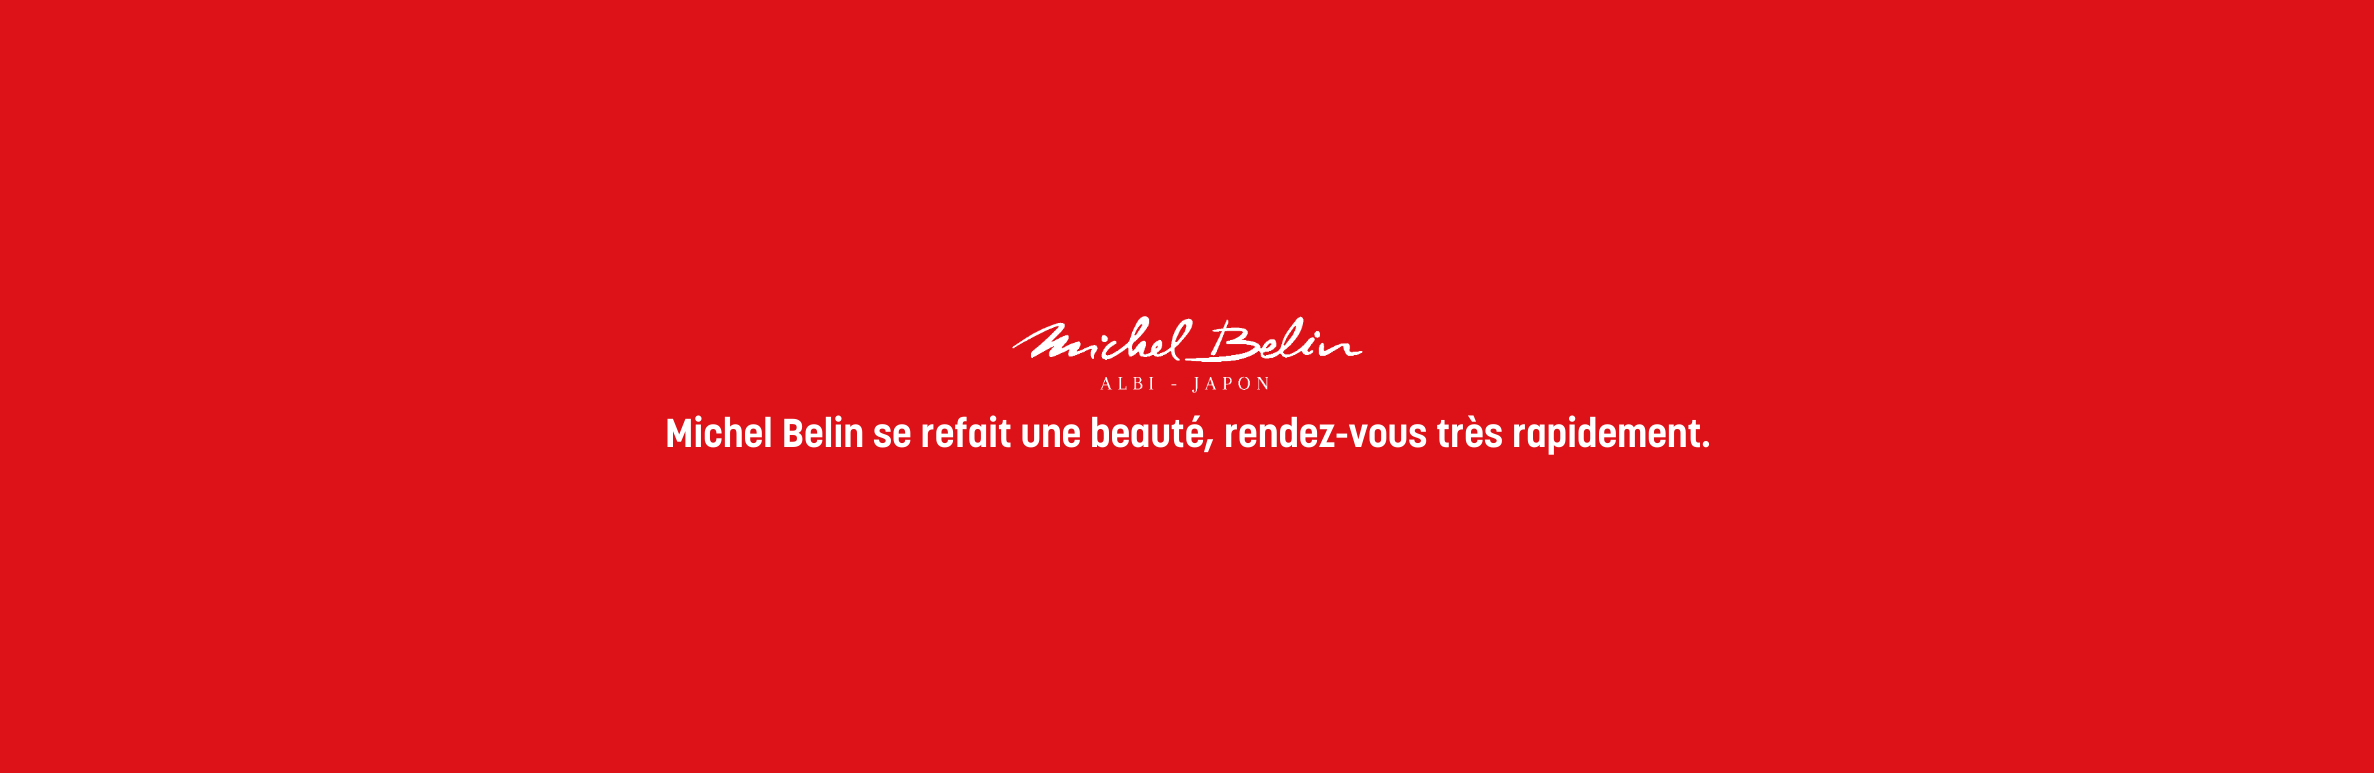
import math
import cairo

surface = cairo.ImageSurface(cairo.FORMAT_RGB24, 2374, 773)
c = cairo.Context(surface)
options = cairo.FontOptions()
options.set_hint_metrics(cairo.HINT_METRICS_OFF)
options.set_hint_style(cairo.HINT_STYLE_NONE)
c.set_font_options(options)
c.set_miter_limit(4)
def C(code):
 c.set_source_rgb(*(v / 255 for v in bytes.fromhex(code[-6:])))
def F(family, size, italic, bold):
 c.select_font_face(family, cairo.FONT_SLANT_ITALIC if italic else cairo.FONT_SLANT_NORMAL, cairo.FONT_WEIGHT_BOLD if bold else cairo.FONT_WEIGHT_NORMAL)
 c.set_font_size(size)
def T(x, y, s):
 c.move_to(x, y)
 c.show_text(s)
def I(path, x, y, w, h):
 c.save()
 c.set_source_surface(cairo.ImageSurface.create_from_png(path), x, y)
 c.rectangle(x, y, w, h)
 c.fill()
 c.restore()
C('dd1118')
c.paint()
I('1.png',1012,316,351,77)
F('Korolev',40,0,1)
C('ffffff')
T(665,447,'Michel Belin se refait une beauté, rendez-vous très rapidement.')
surface.write_to_png('o.png')
